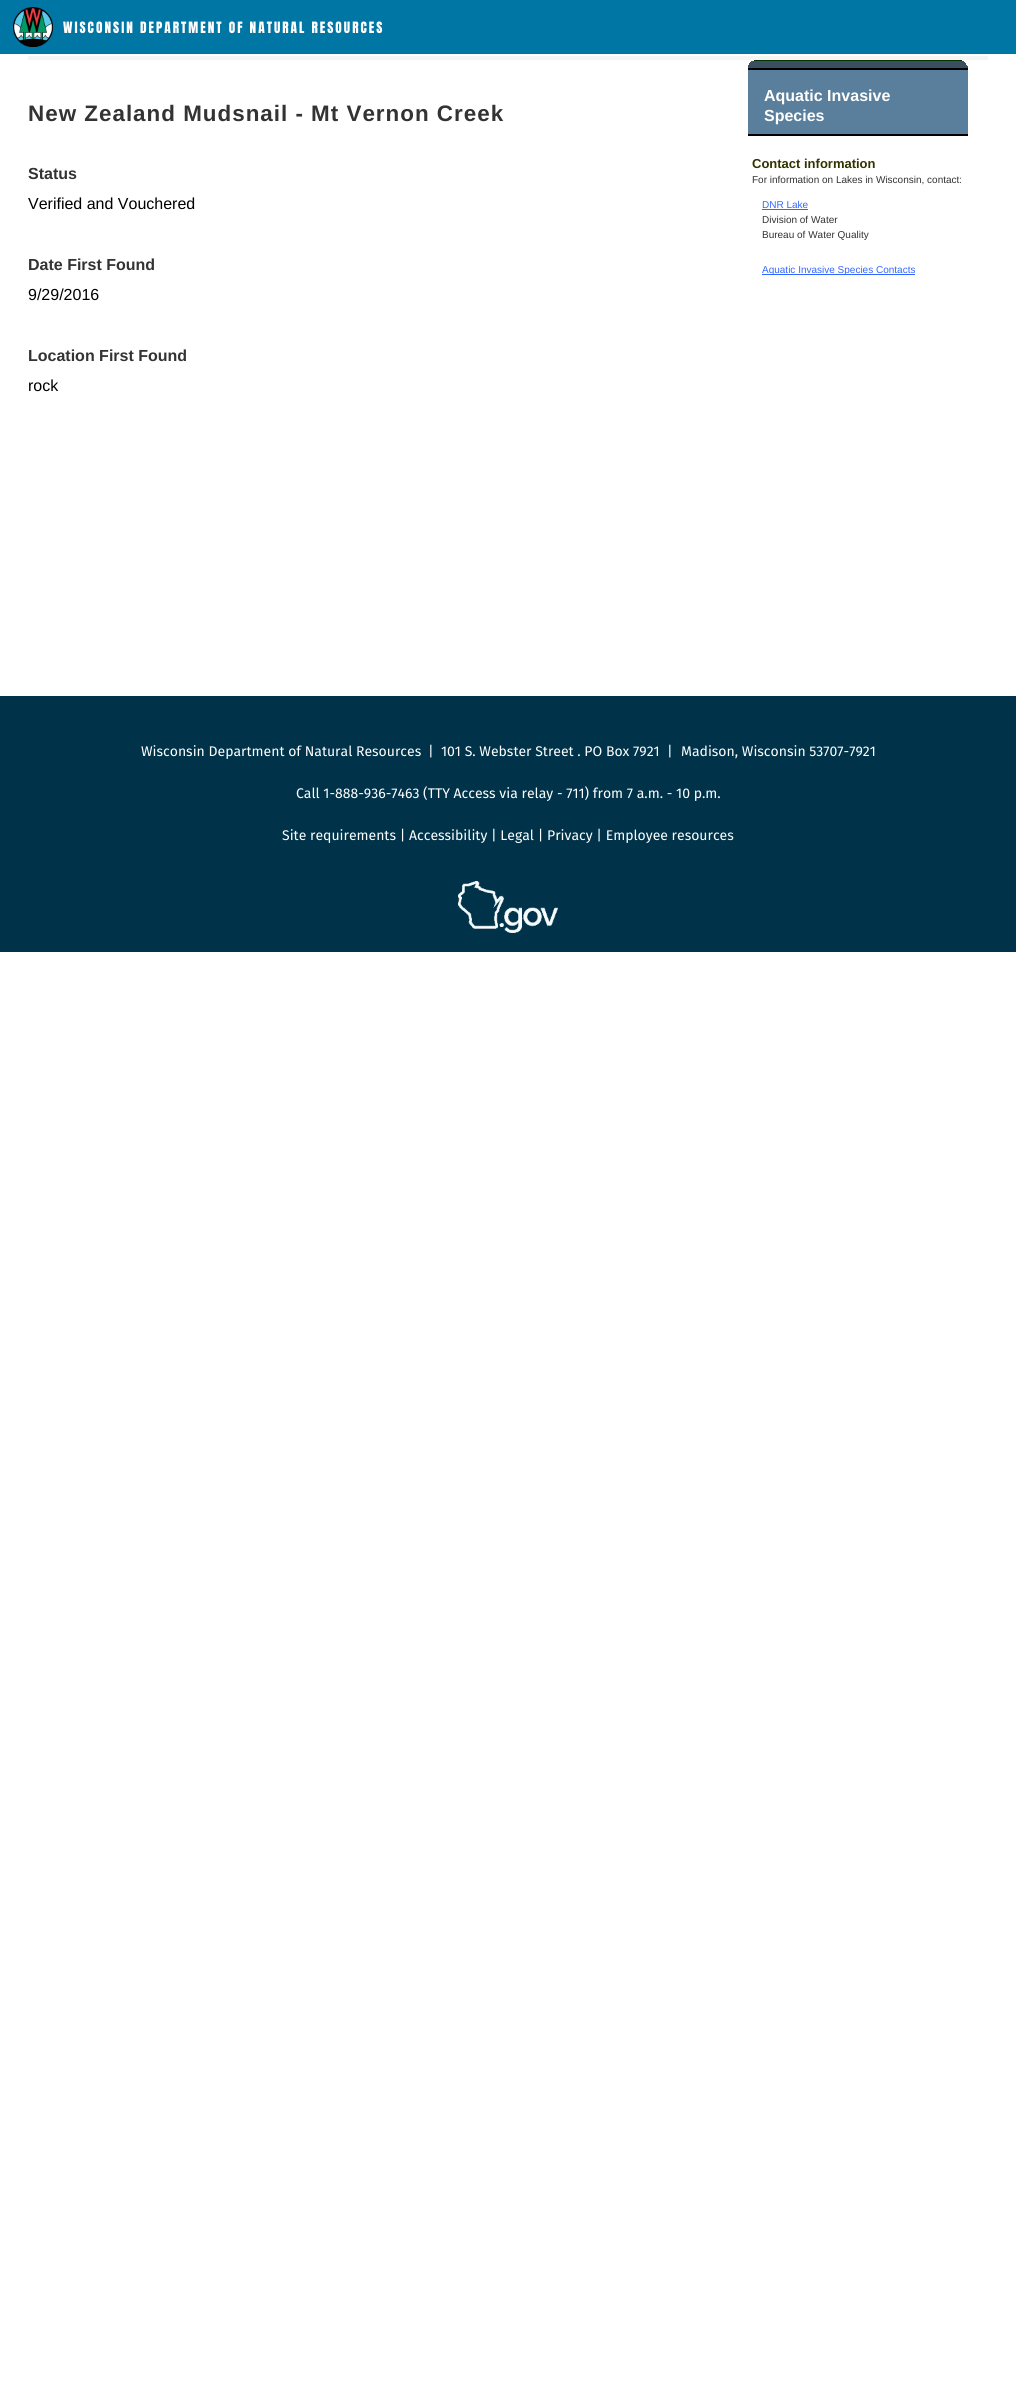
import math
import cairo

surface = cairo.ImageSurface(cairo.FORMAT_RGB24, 1016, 2387)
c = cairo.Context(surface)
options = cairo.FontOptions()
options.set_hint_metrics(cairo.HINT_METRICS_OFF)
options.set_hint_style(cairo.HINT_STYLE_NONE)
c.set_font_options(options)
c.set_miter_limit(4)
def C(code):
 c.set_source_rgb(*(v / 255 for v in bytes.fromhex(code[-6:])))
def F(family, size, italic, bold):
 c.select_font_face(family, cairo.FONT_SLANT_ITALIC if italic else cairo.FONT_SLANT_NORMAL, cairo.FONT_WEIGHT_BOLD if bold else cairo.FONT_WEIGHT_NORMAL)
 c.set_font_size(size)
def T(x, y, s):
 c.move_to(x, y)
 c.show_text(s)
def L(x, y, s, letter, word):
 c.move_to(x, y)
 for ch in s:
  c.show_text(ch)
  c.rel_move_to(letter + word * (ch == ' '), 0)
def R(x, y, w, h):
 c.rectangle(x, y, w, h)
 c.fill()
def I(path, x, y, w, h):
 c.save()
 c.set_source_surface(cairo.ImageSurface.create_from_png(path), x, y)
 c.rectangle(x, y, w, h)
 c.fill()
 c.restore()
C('ffffff')
c.paint()
C('0076a5')
R(0,0,1016,54)
I('1.png',13,7,40,40)
F('Anton',13.3,0,0)
C('ffffff')
L(63,33,'WISCONSIN DEPARTMENT OF NATURAL RESOURCES',2,0)
C('f5f5f5')
R(28,56,960,4)
F('Liberation Sans',22.4,0,1)
C('333333')
L(28,121,'New Zealand Mudsnail - Mt Vernon Creek',1,0)
C('394e5f')
R(748,61,220,7)
I('2.png',748,60,220,6)
C('5a7f9c')
R(748,70,220,64)
C('000000')
R(748,68,220,2)
R(748,134,220,2)
F('Liberation Sans',16,0,1)
C('ffffff')
T(764,101,'Aquatic Invasive')
T(764,121,'Species')
F('Liberation Sans',13,0,1)
C('333300')
T(752,168,'Contact information')
F('Liberation Sans',10,0,0)
C('333333')
T(752,183,'For information on Lakes in Wisconsin, contact:')
C('3366ff')
T(762,208,'DNR Lake')
R(762,209,46,1)
C('333333')
T(762,223,'Division of Water')
T(762,238,'Bureau of Water Quality')
C('3366ff')
R(762,274,153,1)
T(762,273,'Aquatic Invasive Species Contacts')
F('Liberation Sans',16,0,1)
C('333333')
T(28,179,'Status')
F('Liberation Sans',16,0,0)
C('000000')
T(28,209,'Verified and Vouchered')
F('Liberation Sans',16,0,1)
C('333333')
T(28,270,'Date First Found')
F('Liberation Sans',16,0,0)
C('000000')
T(28,300,'9/29/2016')
F('Liberation Sans',16,0,1)
C('333333')
T(28,361,'Location First Found')
F('Liberation Sans',16,0,0)
C('000000')
T(28,391,'rock')
C('003349')
R(0,696,1016,256)
F('Fira Sans',14,0,0)
C('ffffff')
T(141,756,'Wisconsin Department of Natural Resources')
T(428,756,'|')
T(441,756,'101 S. Webster Street . PO Box 7921')
T(667,756,'|')
T(681,756,'Madison, Wisconsin 53707-7921')
T(296,798,'Call 1-888-936-7463 (TTY Access via relay - 711) from 7 a.m. - 10 p.m.')
T(282,840,'Site requirements | Accessibility | Legal | Privacy | Employee resources')
I('3.png',458,881,100,52)
surface.write_to_png('o.png')
